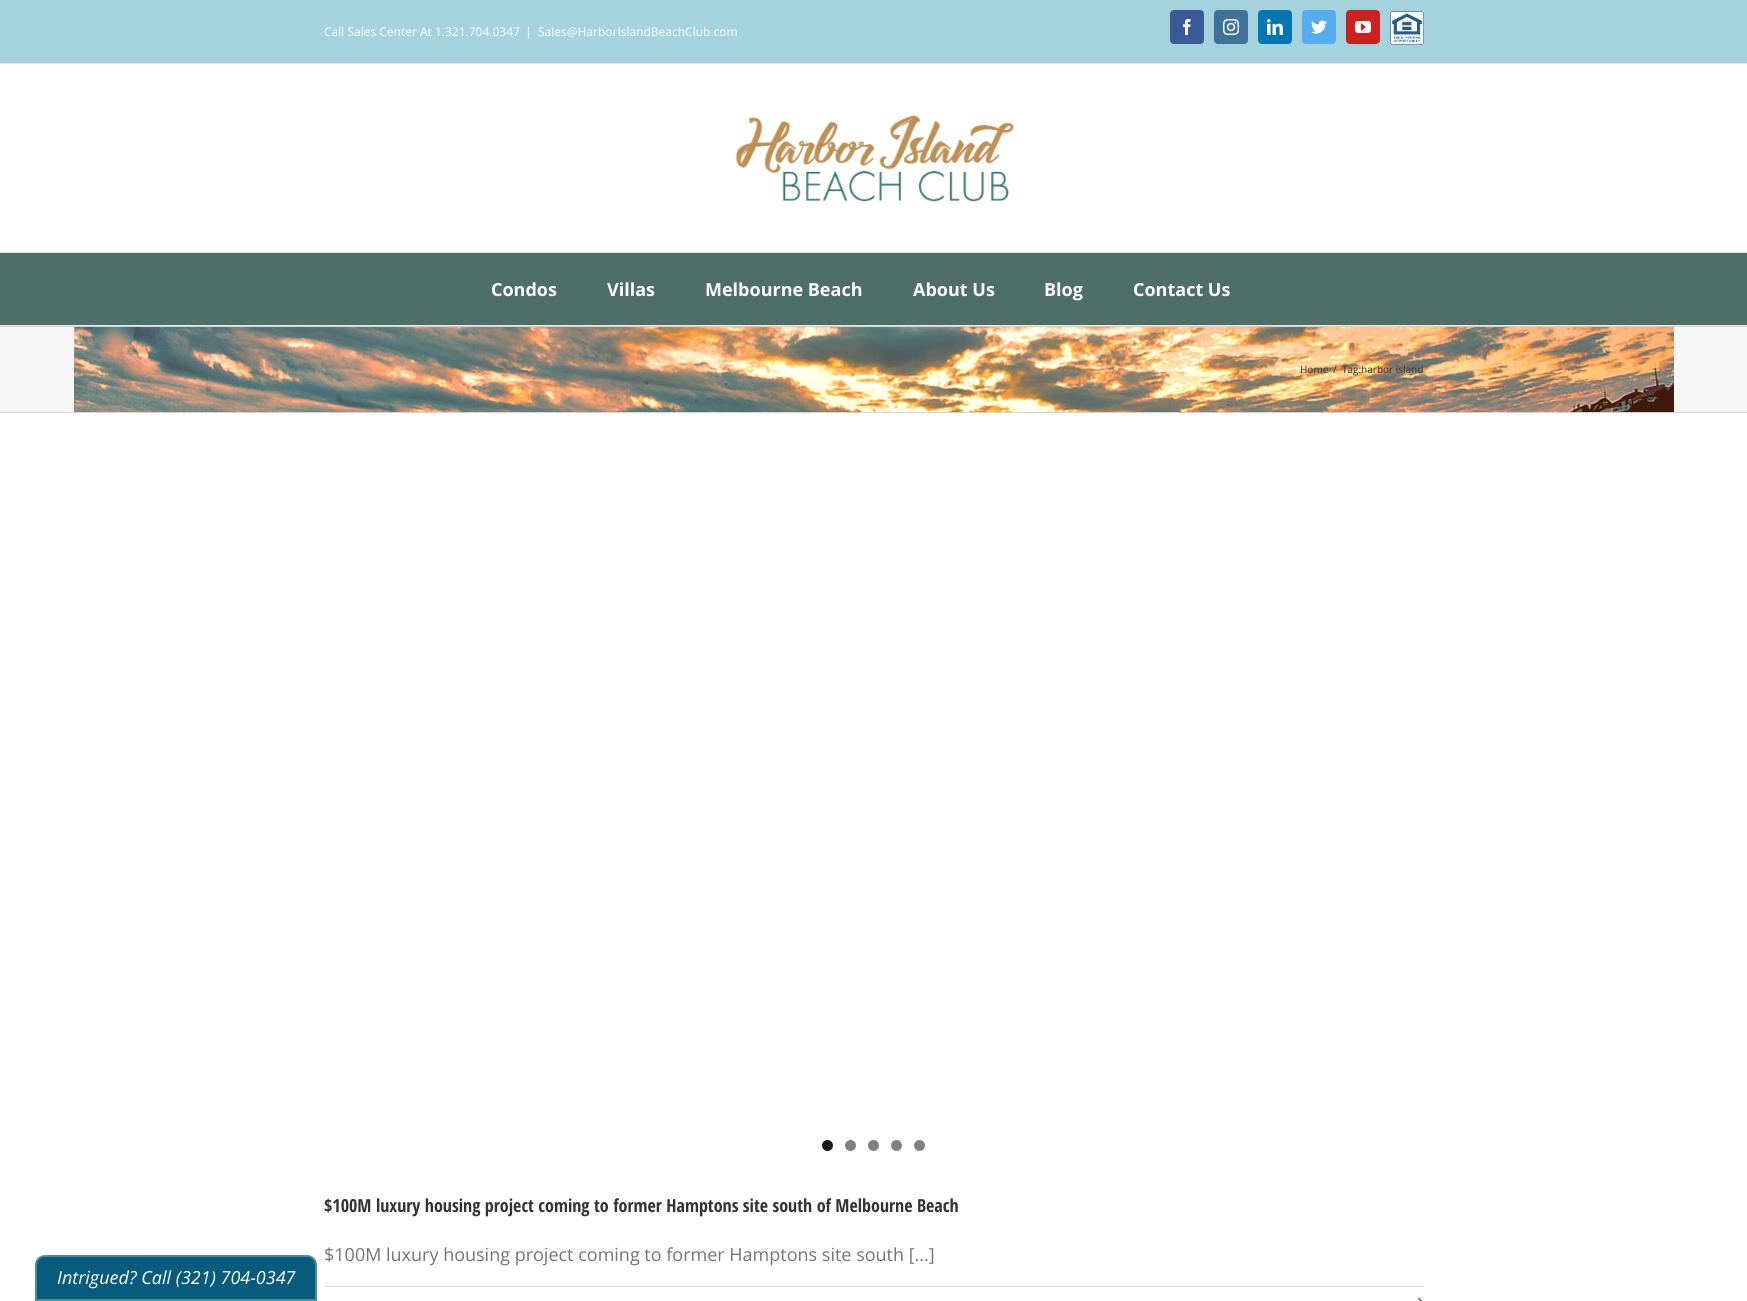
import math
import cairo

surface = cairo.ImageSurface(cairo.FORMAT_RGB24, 1747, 1301)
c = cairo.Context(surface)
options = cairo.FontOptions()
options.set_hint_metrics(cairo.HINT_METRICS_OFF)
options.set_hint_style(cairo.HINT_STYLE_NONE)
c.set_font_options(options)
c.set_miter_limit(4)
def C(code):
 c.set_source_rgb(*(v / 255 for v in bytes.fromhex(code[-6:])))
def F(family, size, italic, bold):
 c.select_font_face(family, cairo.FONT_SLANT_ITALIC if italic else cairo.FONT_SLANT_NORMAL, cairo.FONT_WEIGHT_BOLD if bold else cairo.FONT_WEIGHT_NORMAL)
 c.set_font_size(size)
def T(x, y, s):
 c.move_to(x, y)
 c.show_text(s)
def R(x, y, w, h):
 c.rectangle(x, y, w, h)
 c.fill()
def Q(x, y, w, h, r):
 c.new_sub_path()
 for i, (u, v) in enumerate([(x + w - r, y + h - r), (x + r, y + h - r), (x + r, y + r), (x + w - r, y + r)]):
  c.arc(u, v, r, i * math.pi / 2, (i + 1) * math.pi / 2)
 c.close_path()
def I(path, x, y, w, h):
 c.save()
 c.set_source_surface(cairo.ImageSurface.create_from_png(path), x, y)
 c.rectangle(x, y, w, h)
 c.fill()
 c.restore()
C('ffffff')
c.paint()
C('a4d3dd')
R(0,0,1747,63)
C('e5e5e5')
R(0,63,1747,1)
F('Open Sans',12,0,0)
C('ffffff')
T(324,36,'Call Sales Center At 1.321.704.0347')
T(525,36,'|')
T(538,36,'Sales@HarborIslandBeachClub.com')
C('3b5998')
Q(1170.5,10.5,33,33,3.5)
c.fill_preserve()
c.set_line_width(1)
c.stroke()
I('1.png',1183,19,8,16)
C('3f729b')
Q(1214.5,10.5,33,33,3.5)
c.fill_preserve()
c.stroke()
I('2.png',1223,19,16,16)
C('0077b5')
Q(1258.5,10.5,33,33,3.5)
c.fill_preserve()
c.stroke()
I('3.png',1267,19,16,16)
C('55acee')
Q(1302.5,10.5,33,33,3.5)
c.fill_preserve()
c.stroke()
I('4.png',1311,20,16,14)
C('cd201f')
Q(1346.5,10.5,33,33,3.5)
c.fill_preserve()
c.stroke()
I('5.png',1355,21,16,12)
I('6.png',1390,11,34,34)
C('e5e5e5')
R(0,252,1747,1)
I('7.png',735,115,280,87)
C('4d6f68')
R(0,253,1747,72)
C('e5e5e5')
R(0,325,1747,1)
F('Open Sans',18,0,1)
C('ffffff')
T(491,296,'Condos')
T(607,296,'Villas')
T(705,296,'Melbourne Beach')
T(913,296,'About Us')
T(1044,296,'Blog')
T(1133,296,'Contact Us')
C('f6f6f6')
R(0,327,1747,85)
I('8.png',74,327,1600,85)
C('d2d3d4')
R(0,326,1747,1)
R(0,412,1747,1)
F('Open Sans',10,0,0)
C('333333')
T(1300,373,'Home')
T(1333,373,'/')
T(1342,373,'Tag:harbor island')
C('1a1a1a')
c.new_path()
c.arc(827.5,1145.5,5.5,0,2 * math.pi)
c.fill()
C('808080')
c.arc(850.5,1145.5,5.5,0,2 * math.pi)
c.fill()
c.arc(873.5,1145.5,5.5,0,2 * math.pi)
c.fill()
c.arc(896.5,1145.5,5.5,0,2 * math.pi)
c.fill()
c.arc(919.5,1145.5,5.5,0,2 * math.pi)
c.fill()
F('Open Sans Condensed',18,0,1)
C('333333')
T(324,1212,'$100M luxury housing project coming to former Hamptons site south of Melbourne Beach')
F('Open Sans',18,0,0)
C('747474')
T(324,1261,'$100M luxury housing project coming to former Hamptons site south [...]')
C('e0dede')
R(324,1286,1100,1)
I('9.png',1418,1297,4,4)
C('075b7c')
c.new_path()
c.move_to(45,1256)
c.line_to(307,1256)
c.curve_to(312,1256,316,1260,316,1265)
c.line_to(316,1300)
c.line_to(36,1300)
c.line_to(36,1265)
c.curve_to(36,1260,40,1256,45,1256)
c.close_path()
c.fill_preserve()
C('4c8ca1')
c.set_line_width(2)
c.stroke()
F('Open Sans',18,1,0)
C('ffffff')
T(57,1284,'Intrigued? Call (321) 704-0347')
surface.write_to_png('o.png')
